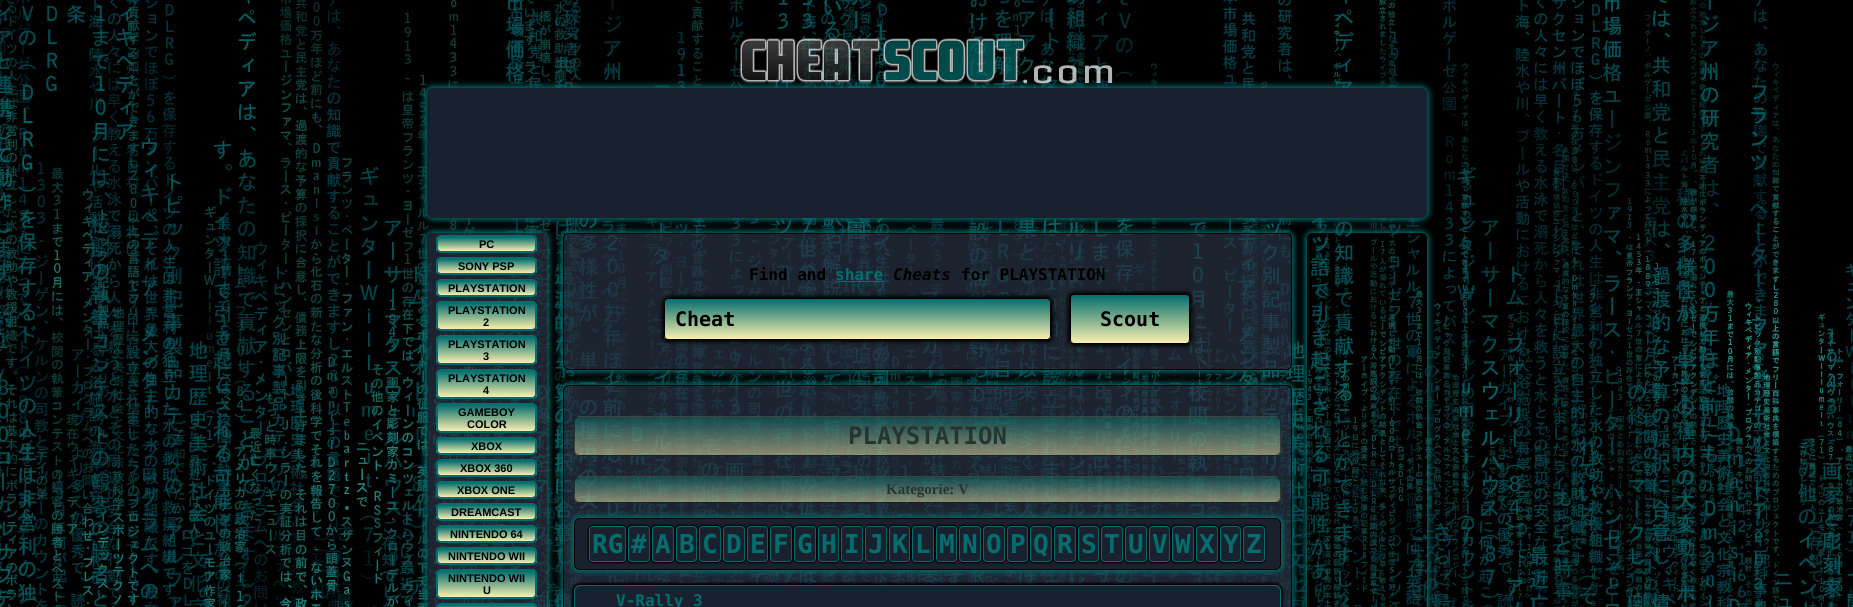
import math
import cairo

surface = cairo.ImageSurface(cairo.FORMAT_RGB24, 1853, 607)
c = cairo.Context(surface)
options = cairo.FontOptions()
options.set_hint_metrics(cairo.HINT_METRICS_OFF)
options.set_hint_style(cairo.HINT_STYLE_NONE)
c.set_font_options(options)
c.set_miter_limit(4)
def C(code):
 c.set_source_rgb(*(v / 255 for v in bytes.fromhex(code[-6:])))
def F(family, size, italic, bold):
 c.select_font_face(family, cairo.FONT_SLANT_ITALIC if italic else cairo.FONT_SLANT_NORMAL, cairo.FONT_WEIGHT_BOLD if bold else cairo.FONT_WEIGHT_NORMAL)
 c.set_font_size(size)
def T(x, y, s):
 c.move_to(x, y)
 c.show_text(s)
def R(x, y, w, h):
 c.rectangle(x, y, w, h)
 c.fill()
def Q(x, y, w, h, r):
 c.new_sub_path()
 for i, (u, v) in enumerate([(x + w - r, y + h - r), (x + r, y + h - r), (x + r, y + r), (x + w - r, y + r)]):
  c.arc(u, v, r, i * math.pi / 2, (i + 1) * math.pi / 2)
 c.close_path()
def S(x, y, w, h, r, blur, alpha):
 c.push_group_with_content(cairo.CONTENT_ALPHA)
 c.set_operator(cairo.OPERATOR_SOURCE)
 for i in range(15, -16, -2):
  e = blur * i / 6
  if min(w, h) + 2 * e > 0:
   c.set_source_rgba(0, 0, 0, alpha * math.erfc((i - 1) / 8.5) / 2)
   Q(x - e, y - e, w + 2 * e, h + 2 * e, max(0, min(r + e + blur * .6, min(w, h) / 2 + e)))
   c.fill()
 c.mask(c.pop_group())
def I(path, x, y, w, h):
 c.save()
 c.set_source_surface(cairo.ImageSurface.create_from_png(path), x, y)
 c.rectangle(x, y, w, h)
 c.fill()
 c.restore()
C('ffffff')
c.paint()
I('1.png',0,0,1853,607)
C('036e6e')
S(425,86,1004,134,8,3,1)
I('2.png',740,38,373,46)
C('1a212e')
Q(427,88,1000,130,6)
c.fill()
c.save()
c.set_fill_rule(cairo.FILL_RULE_EVEN_ODD)
c.new_path()
c.move_to(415,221)
c.line_to(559,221)
c.line_to(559,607)
c.line_to(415,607)
c.close_path()
c.move_to(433,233)
c.line_to(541,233)
c.curve_to(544.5,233,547,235.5,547,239)
c.line_to(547,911)
c.curve_to(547,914.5,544.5,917,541,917)
c.line_to(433,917)
c.curve_to(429.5,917,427,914.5,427,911)
c.line_to(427,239)
c.curve_to(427,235.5,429.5,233,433,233)
c.close_path()
c.clip()
C('036e6e')
S(425,231,124,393,8,3,1)
c.restore()
I('3.png',427,233,120,374)
c.save()
Q(436,235,101,18,5)
c.clip()
gradient = cairo.LinearGradient(487,237,487,251)
gradient.add_color_stop_rgba(0,0.012,0.431,0.431,1)
gradient.add_color_stop_rgba(1,0.976,0.937,0.686,1)
c.set_source(gradient)
R(436,237,101,14)
c.restore()
Q(437,236,99,16,4)
C('036e6e')
c.stroke()
F('Liberation Sans',11,0,1)
C('000000')
T(479,248,'PC')
c.save()
Q(436,257,101,18,5)
c.clip()
gradient = cairo.LinearGradient(487,259,487,273)
gradient.add_color_stop_rgba(0,0.012,0.431,0.431,1)
gradient.add_color_stop_rgba(1,0.976,0.937,0.686,1)
c.set_source(gradient)
R(436,259,101,14)
c.restore()
Q(437,258,99,16,4)
C('036e6e')
c.stroke()
C('000000')
T(458,270,'SONY PSP')
c.save()
Q(436,279,101,18,5)
c.clip()
gradient = cairo.LinearGradient(487,281,487,295)
gradient.add_color_stop_rgba(0,0.012,0.431,0.431,1)
gradient.add_color_stop_rgba(1,0.976,0.937,0.686,1)
c.set_source(gradient)
R(436,281,101,14)
c.restore()
Q(437,280,99,16,4)
C('036e6e')
c.stroke()
C('000000')
T(448,292,'PLAYSTATION')
c.save()
Q(436,301,101,30,5)
c.clip()
gradient = cairo.LinearGradient(487,303,487,329)
gradient.add_color_stop_rgba(0,0.012,0.431,0.431,1)
gradient.add_color_stop_rgba(1,0.976,0.937,0.686,1)
c.set_source(gradient)
R(436,303,101,26)
c.restore()
Q(437,302,99,28,4)
C('036e6e')
c.stroke()
C('000000')
T(448,314,'PLAYSTATION')
T(483,326,'2')
c.save()
Q(436,335,101,30,5)
c.clip()
gradient = cairo.LinearGradient(487,337,487,363)
gradient.add_color_stop_rgba(0,0.012,0.431,0.431,1)
gradient.add_color_stop_rgba(1,0.976,0.937,0.686,1)
c.set_source(gradient)
R(436,337,101,26)
c.restore()
Q(437,336,99,28,4)
C('036e6e')
c.stroke()
C('000000')
T(448,348,'PLAYSTATION')
T(483,360,'3')
c.save()
Q(436,369,101,30,5)
c.clip()
gradient = cairo.LinearGradient(487,371,487,397)
gradient.add_color_stop_rgba(0,0.012,0.431,0.431,1)
gradient.add_color_stop_rgba(1,0.976,0.937,0.686,1)
c.set_source(gradient)
R(436,371,101,26)
c.restore()
Q(437,370,99,28,4)
C('036e6e')
c.stroke()
C('000000')
T(448,382,'PLAYSTATION')
T(483,394,'4')
c.save()
Q(436,403,101,30,5)
c.clip()
gradient = cairo.LinearGradient(487,405,487,431)
gradient.add_color_stop_rgba(0,0.012,0.431,0.431,1)
gradient.add_color_stop_rgba(1,0.976,0.937,0.686,1)
c.set_source(gradient)
R(436,405,101,26)
c.restore()
Q(437,404,99,28,4)
C('036e6e')
c.stroke()
C('000000')
T(458,416,'GAMEBOY')
T(467,428,'COLOR')
c.save()
Q(436,437,101,18,5)
c.clip()
gradient = cairo.LinearGradient(487,439,487,453)
gradient.add_color_stop_rgba(0,0.012,0.431,0.431,1)
gradient.add_color_stop_rgba(1,0.976,0.937,0.686,1)
c.set_source(gradient)
R(436,439,101,14)
c.restore()
Q(437,438,99,16,4)
C('036e6e')
c.stroke()
C('000000')
T(471,450,'XBOX')
c.save()
Q(436,459,101,18,5)
c.clip()
gradient = cairo.LinearGradient(487,461,487,475)
gradient.add_color_stop_rgba(0,0.012,0.431,0.431,1)
gradient.add_color_stop_rgba(1,0.976,0.937,0.686,1)
c.set_source(gradient)
R(436,461,101,14)
c.restore()
Q(437,460,99,16,4)
C('036e6e')
c.stroke()
C('000000')
T(460,472,'XBOX 360')
c.save()
Q(436,481,101,18,5)
c.clip()
gradient = cairo.LinearGradient(487,483,487,497)
gradient.add_color_stop_rgba(0,0.012,0.431,0.431,1)
gradient.add_color_stop_rgba(1,0.976,0.937,0.686,1)
c.set_source(gradient)
R(436,483,101,14)
c.restore()
Q(437,482,99,16,4)
C('036e6e')
c.stroke()
C('000000')
T(457,494,'XBOX ONE')
c.save()
Q(436,503,101,18,5)
c.clip()
gradient = cairo.LinearGradient(487,505,487,519)
gradient.add_color_stop_rgba(0,0.012,0.431,0.431,1)
gradient.add_color_stop_rgba(1,0.976,0.937,0.686,1)
c.set_source(gradient)
R(436,505,101,14)
c.restore()
Q(437,504,99,16,4)
C('036e6e')
c.stroke()
C('000000')
T(451,516,'DREAMCAST')
c.save()
Q(436,525,101,18,5)
c.clip()
gradient = cairo.LinearGradient(487,527,487,541)
gradient.add_color_stop_rgba(0,0.012,0.431,0.431,1)
gradient.add_color_stop_rgba(1,0.976,0.937,0.686,1)
c.set_source(gradient)
R(436,527,101,14)
c.restore()
Q(437,526,99,16,4)
C('036e6e')
c.stroke()
C('000000')
T(450,538,'NINTENDO 64')
c.save()
Q(436,547,101,18,5)
c.clip()
gradient = cairo.LinearGradient(487,549,487,563)
gradient.add_color_stop_rgba(0,0.012,0.431,0.431,1)
gradient.add_color_stop_rgba(1,0.976,0.937,0.686,1)
c.set_source(gradient)
R(436,549,101,14)
c.restore()
Q(437,548,99,16,4)
C('036e6e')
c.stroke()
C('000000')
T(448,560,'NINTENDO WII')
c.save()
Q(436,569,101,30,5)
c.clip()
gradient = cairo.LinearGradient(487,571,487,597)
gradient.add_color_stop_rgba(0,0.012,0.431,0.431,1)
gradient.add_color_stop_rgba(1,0.976,0.937,0.686,1)
c.set_source(gradient)
R(436,571,101,26)
c.restore()
Q(437,570,99,28,4)
C('036e6e')
c.stroke()
C('000000')
T(448,582,'NINTENDO WII')
T(483,594,'U')
c.save()
Q(436,603,101,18,5)
c.clip()
gradient = cairo.LinearGradient(487,605,487,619)
gradient.add_color_stop_rgba(0,0.012,0.431,0.431,1)
gradient.add_color_stop_rgba(1,0.976,0.937,0.686,1)
c.set_source(gradient)
R(436,605,101,2)
c.restore()
Q(437,604,99,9,4)
C('036e6e')
c.stroke()
c.save()
c.set_fill_rule(cairo.FILL_RULE_EVEN_ODD)
c.new_path()
c.move_to(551,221)
c.line_to(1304,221)
c.line_to(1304,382)
c.line_to(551,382)
c.close_path()
c.move_to(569,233)
c.line_to(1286,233)
c.curve_to(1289.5,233,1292,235.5,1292,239)
c.line_to(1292,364)
c.curve_to(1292,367.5,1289.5,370,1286,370)
c.line_to(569,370)
c.curve_to(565.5,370,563,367.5,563,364)
c.line_to(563,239)
c.curve_to(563,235.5,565.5,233,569,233)
c.close_path()
c.clip()
C('036e6e')
S(561,231,733,141,8,3,1)
c.restore()
I('4.png',563,233,729,137)
Q(563.5,233.5,728,136,5.5)
C('000000')
c.set_line_width(1)
c.stroke()
F('DejaVu Sans Mono',16,0,1)
T(749,280,'Find and')
C('036e6e')
T(835,280,'share')
R(835,281,49,1)
F('DejaVu Sans Mono',16,1,1)
C('000000')
T(893,280,'Cheats')
F('DejaVu Sans Mono',16,0,1)
T(961,280,'for PLAYSTATION')
C('000000')
S(662,296,391,46,6,2,1)
c.save()
Q(664,298,387,42,4)
c.clip()
gradient = cairo.LinearGradient(858,299,858,339)
gradient.add_color_stop_rgba(0,0.012,0.431,0.431,1)
gradient.add_color_stop_rgba(1,0.976,0.937,0.686,1)
c.set_source(gradient)
R(664,299,387,40)
c.restore()
Q(664.5,298.5,386,41,3.5)
C('000000')
c.stroke()
F('DejaVu Sans Mono',20,0,1)
T(675,326,'Cheat')
C('000000')
S(1068,292,124,54,6,2,1)
c.save()
Q(1070,294,120,50,4)
c.clip()
gradient = cairo.LinearGradient(1130,295,1130,343)
gradient.add_color_stop_rgba(0,0.012,0.431,0.431,1)
gradient.add_color_stop_rgba(1,0.976,0.937,0.686,1)
c.set_source(gradient)
R(1070,295,120,48)
c.restore()
Q(1070.5,294.5,119,49,3.5)
C('000000')
c.stroke()
T(1100,326,'Scout')
c.save()
c.set_fill_rule(cairo.FILL_RULE_EVEN_ODD)
c.new_path()
c.move_to(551,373)
c.line_to(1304,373)
c.line_to(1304,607)
c.line_to(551,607)
c.close_path()
c.move_to(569,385)
c.line_to(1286,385)
c.curve_to(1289.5,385,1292,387.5,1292,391)
c.line_to(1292,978)
c.curve_to(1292,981.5,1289.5,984,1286,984)
c.line_to(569,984)
c.curve_to(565.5,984,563,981.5,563,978)
c.line_to(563,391)
c.curve_to(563,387.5,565.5,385,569,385)
c.close_path()
c.clip()
C('036e6e')
S(561,383,733,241,8,3,1)
c.restore()
I('5.png',563,385,729,222)
Q(563.5,385.5,728,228,5.5)
c.stroke()
c.save()
Q(574,416,707,40,6)
c.clip()
gradient = cairo.LinearGradient(928,379,928,417)
gradient.add_color_stop_rgba(0,0.012,0.431,0.431,.5)
gradient.add_color_stop_rgba(1,0.976,0.937,0.686,.5)
c.set_source(gradient)
R(574,416,707,1)
gradient = cairo.LinearGradient(928,417,928,455)
gradient.add_color_stop_rgba(0,0.012,0.431,0.431,.5)
gradient.add_color_stop_rgba(1,0.976,0.937,0.686,.5)
c.set_source(gradient)
R(574,417,707,38)
gradient = cairo.LinearGradient(928,455,928,493)
gradient.add_color_stop_rgba(0,0.012,0.431,0.431,.5)
gradient.add_color_stop_rgba(1,0.976,0.937,0.686,.5)
c.set_source(gradient)
R(574,455,707,1)
c.restore()
Q(574.5,416.5,706,39,5.5)
c.set_source_rgba(0,0,0,0.5)
c.stroke()
F('DejaVu Sans Mono',24,0,1)
C('253530')
T(848,444,'PLAYSTATION')
c.save()
Q(574,476,707,27,6)
c.clip()
gradient = cairo.LinearGradient(928,452,928,477)
gradient.add_color_stop_rgba(0,0.012,0.431,0.431,.5)
gradient.add_color_stop_rgba(1,0.976,0.937,0.686,.5)
c.set_source(gradient)
R(574,476,707,1)
gradient = cairo.LinearGradient(928,477,928,502)
gradient.add_color_stop_rgba(0,0.012,0.431,0.431,.5)
gradient.add_color_stop_rgba(1,0.976,0.937,0.686,.5)
c.set_source(gradient)
R(574,477,707,25)
gradient = cairo.LinearGradient(928,502,928,527)
gradient.add_color_stop_rgba(0,0.012,0.431,0.431,.5)
gradient.add_color_stop_rgba(1,0.976,0.937,0.686,.5)
c.set_source(gradient)
R(574,502,707,1)
c.restore()
Q(574.5,476.5,706,26,5.5)
c.set_source_rgba(0,0,0,0.5)
c.stroke()
F('Liberation Serif',15,0,1)
C('253530')
T(886,494,'Kategorie: V')
C('036e6e')
S(572,516,711,56,8,3,1)
C('1a212e')
Q(574.5,518.5,706,51,5.5)
c.fill_preserve()
C('000000')
c.stroke()
C('000000')
S(588,525,39,38,5,1,1)
C('1a212e')
Q(589.5,526.5,36,35,3.5)
c.fill_preserve()
C('036e6e')
c.stroke()
F('DejaVu Sans Mono',26,0,1)
T(592,553,'RG')
C('000000')
S(627,525,24,38,5,1,1)
C('1a212e')
Q(628.5,526.5,21,35,3.5)
c.fill_preserve()
C('036e6e')
c.stroke()
T(631,553,'#')
C('000000')
S(651,525,24,38,5,1,1)
C('1a212e')
Q(652.5,526.5,21,35,3.5)
c.fill_preserve()
C('036e6e')
c.stroke()
T(655,553,'A')
C('000000')
S(675,525,23,38,5,1,1)
C('1a212e')
Q(676.5,526.5,20,35,3.5)
c.fill_preserve()
C('036e6e')
c.stroke()
T(679,553,'B')
C('000000')
S(698,525,24,38,5,1,1)
C('1a212e')
Q(699.5,526.5,21,35,3.5)
c.fill_preserve()
C('036e6e')
c.stroke()
T(702,553,'C')
C('000000')
S(722,525,24,38,5,1,1)
C('1a212e')
Q(723.5,526.5,21,35,3.5)
c.fill_preserve()
C('036e6e')
c.stroke()
T(726,553,'D')
C('000000')
S(746,525,23,38,5,1,1)
C('1a212e')
Q(747.5,526.5,20,35,3.5)
c.fill_preserve()
C('036e6e')
c.stroke()
T(750,553,'E')
C('000000')
S(769,525,24,38,5,1,1)
C('1a212e')
Q(770.5,526.5,21,35,3.5)
c.fill_preserve()
C('036e6e')
c.stroke()
T(773,553,'F')
C('000000')
S(793,525,24,38,5,1,1)
C('1a212e')
Q(794.5,526.5,21,35,3.5)
c.fill_preserve()
C('036e6e')
c.stroke()
T(797,553,'G')
C('000000')
S(817,525,23,38,5,1,1)
C('1a212e')
Q(818.5,526.5,20,35,3.5)
c.fill_preserve()
C('036e6e')
c.stroke()
T(821,553,'H')
C('000000')
S(840,525,24,38,5,1,1)
C('1a212e')
Q(841.5,526.5,21,35,3.5)
c.fill_preserve()
C('036e6e')
c.stroke()
T(844,553,'I')
C('000000')
S(864,525,24,38,5,1,1)
C('1a212e')
Q(865.5,526.5,21,35,3.5)
c.fill_preserve()
C('036e6e')
c.stroke()
T(868,553,'J')
C('000000')
S(888,525,23,38,5,1,1)
C('1a212e')
Q(889.5,526.5,20,35,3.5)
c.fill_preserve()
C('036e6e')
c.stroke()
T(892,553,'K')
C('000000')
S(911,525,24,38,5,1,1)
C('1a212e')
Q(912.5,526.5,21,35,3.5)
c.fill_preserve()
C('036e6e')
c.stroke()
T(915,553,'L')
C('000000')
S(935,525,23,38,5,1,1)
C('1a212e')
Q(936.5,526.5,20,35,3.5)
c.fill_preserve()
C('036e6e')
c.stroke()
T(939,553,'M')
C('000000')
S(958,525,24,38,5,1,1)
C('1a212e')
Q(959.5,526.5,21,35,3.5)
c.fill_preserve()
C('036e6e')
c.stroke()
T(962,553,'N')
C('000000')
S(982,525,24,38,5,1,1)
C('1a212e')
Q(983.5,526.5,21,35,3.5)
c.fill_preserve()
C('036e6e')
c.stroke()
T(986,553,'O')
C('000000')
S(1006,525,23,38,5,1,1)
C('1a212e')
Q(1007.5,526.5,20,35,3.5)
c.fill_preserve()
C('036e6e')
c.stroke()
T(1010,553,'P')
C('000000')
S(1029,525,24,38,5,1,1)
C('1a212e')
Q(1030.5,526.5,21,35,3.5)
c.fill_preserve()
C('036e6e')
c.stroke()
T(1033,553,'Q')
C('000000')
S(1053,525,24,38,5,1,1)
C('1a212e')
Q(1054.5,526.5,21,35,3.5)
c.fill_preserve()
C('036e6e')
c.stroke()
T(1057,553,'R')
C('000000')
S(1077,525,23,38,5,1,1)
C('1a212e')
Q(1078.5,526.5,20,35,3.5)
c.fill_preserve()
C('036e6e')
c.stroke()
T(1081,553,'S')
C('000000')
S(1100,525,24,38,5,1,1)
C('1a212e')
Q(1101.5,526.5,21,35,3.5)
c.fill_preserve()
C('036e6e')
c.stroke()
T(1104,553,'T')
C('000000')
S(1124,525,24,38,5,1,1)
C('1a212e')
Q(1125.5,526.5,21,35,3.5)
c.fill_preserve()
C('036e6e')
c.stroke()
T(1128,553,'U')
C('000000')
S(1148,525,23,38,5,1,1)
C('1a212e')
Q(1149.5,526.5,20,35,3.5)
c.fill_preserve()
C('036e6e')
c.stroke()
T(1152,553,'V')
C('000000')
S(1171,525,24,38,5,1,1)
C('1a212e')
Q(1172.5,526.5,21,35,3.5)
c.fill_preserve()
C('036e6e')
c.stroke()
T(1175,553,'W')
C('000000')
S(1195,525,24,38,5,1,1)
C('1a212e')
Q(1196.5,526.5,21,35,3.5)
c.fill_preserve()
C('036e6e')
c.stroke()
T(1199,553,'X')
C('000000')
S(1219,525,23,38,5,1,1)
C('1a212e')
Q(1220.5,526.5,20,35,3.5)
c.fill_preserve()
C('036e6e')
c.stroke()
T(1223,553,'Y')
C('000000')
S(1242,525,24,38,5,1,1)
C('1a212e')
Q(1243.5,526.5,21,35,3.5)
c.fill_preserve()
C('036e6e')
c.stroke()
T(1246,553,'Z')
C('000000')
S(572,583,711,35,8,1,1)
C('1a212e')
Q(574.5,585.5,706,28,5.5)
c.fill_preserve()
C('036e6e')
c.stroke()
F('DejaVu Sans Mono',16,0,1)
T(616,606,'V-Rally 3')
c.save()
c.set_fill_rule(cairo.FILL_RULE_EVEN_ODD)
c.new_path()
c.move_to(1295,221)
c.line_to(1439,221)
c.line_to(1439,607)
c.line_to(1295,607)
c.close_path()
c.move_to(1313,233)
c.line_to(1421,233)
c.curve_to(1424.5,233,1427,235.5,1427,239)
c.line_to(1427,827)
c.curve_to(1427,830.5,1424.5,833,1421,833)
c.line_to(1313,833)
c.curve_to(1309.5,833,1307,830.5,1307,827)
c.line_to(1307,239)
c.curve_to(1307,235.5,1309.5,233,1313,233)
c.close_path()
c.clip()
C('036e6e')
S(1305,231,124,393,8,3,1)
c.restore()
surface.write_to_png('o.png')
